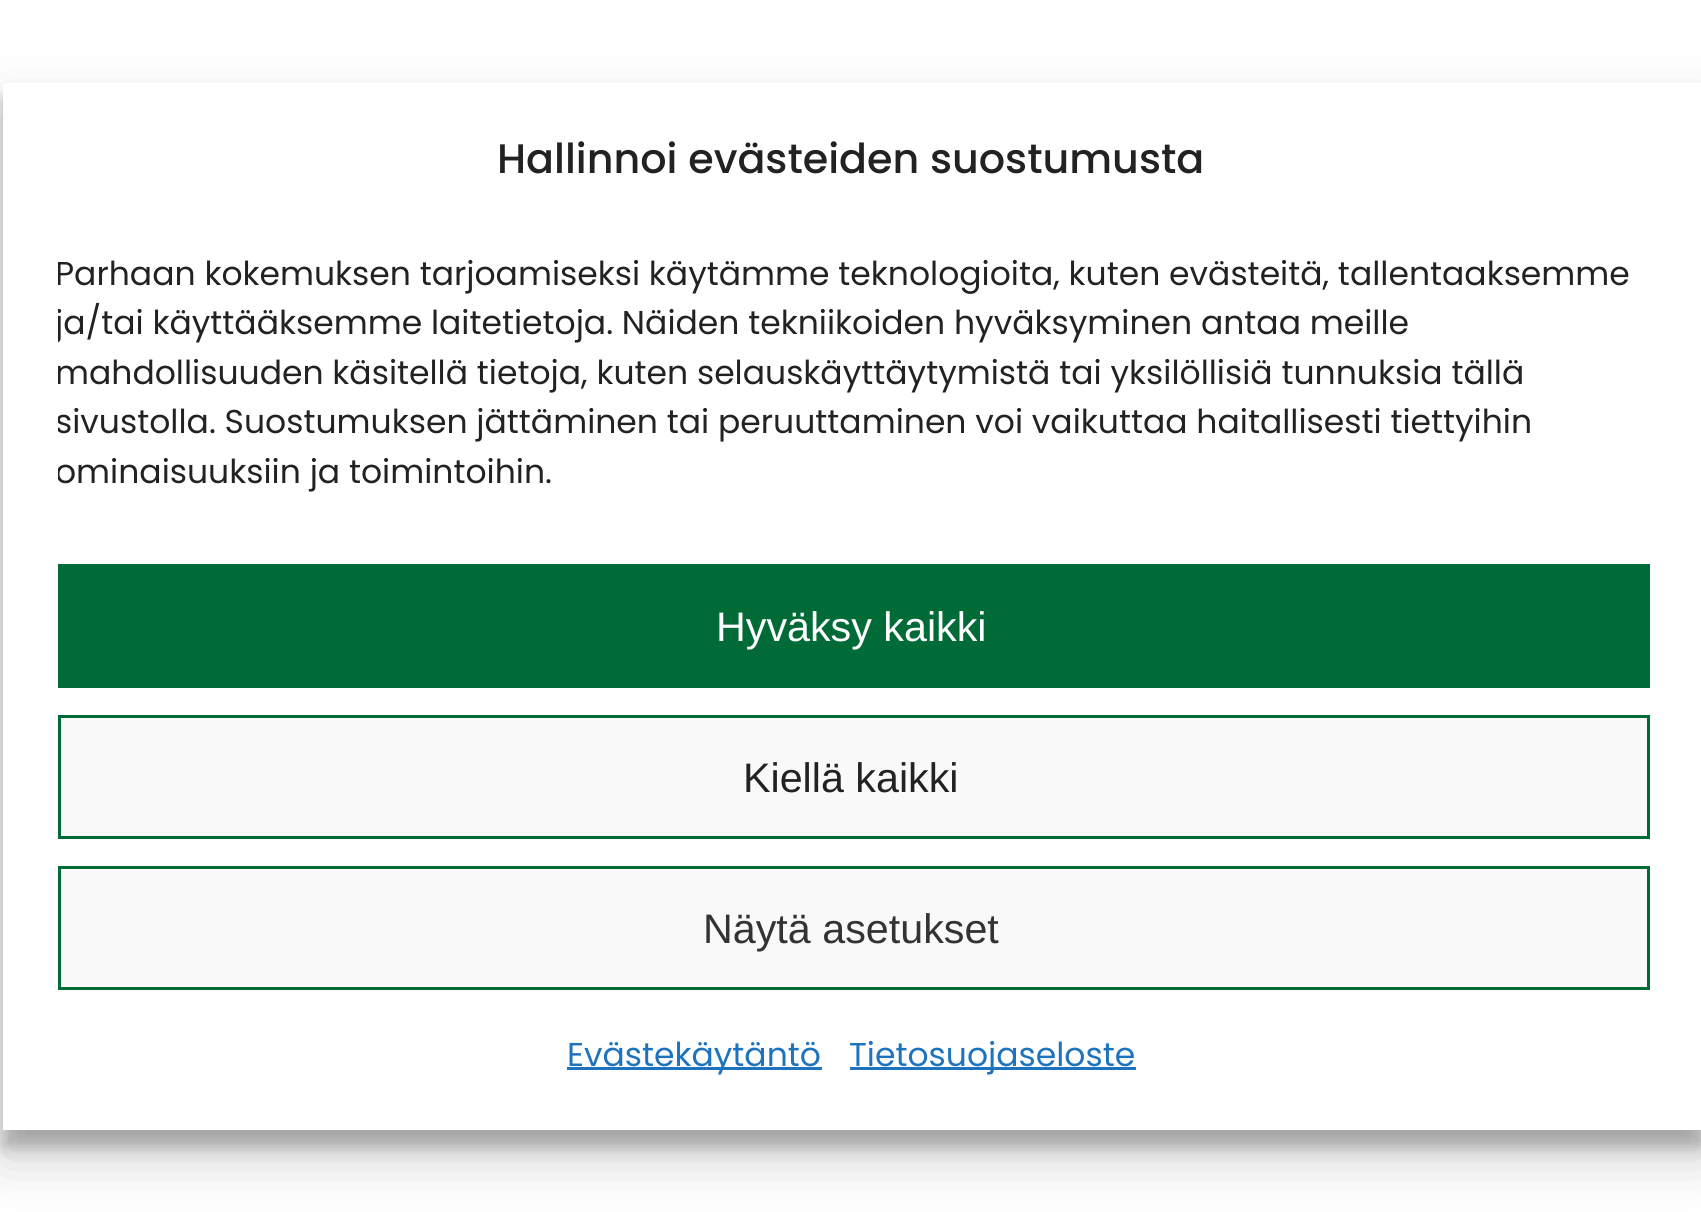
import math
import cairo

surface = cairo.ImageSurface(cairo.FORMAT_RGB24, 1701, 1212)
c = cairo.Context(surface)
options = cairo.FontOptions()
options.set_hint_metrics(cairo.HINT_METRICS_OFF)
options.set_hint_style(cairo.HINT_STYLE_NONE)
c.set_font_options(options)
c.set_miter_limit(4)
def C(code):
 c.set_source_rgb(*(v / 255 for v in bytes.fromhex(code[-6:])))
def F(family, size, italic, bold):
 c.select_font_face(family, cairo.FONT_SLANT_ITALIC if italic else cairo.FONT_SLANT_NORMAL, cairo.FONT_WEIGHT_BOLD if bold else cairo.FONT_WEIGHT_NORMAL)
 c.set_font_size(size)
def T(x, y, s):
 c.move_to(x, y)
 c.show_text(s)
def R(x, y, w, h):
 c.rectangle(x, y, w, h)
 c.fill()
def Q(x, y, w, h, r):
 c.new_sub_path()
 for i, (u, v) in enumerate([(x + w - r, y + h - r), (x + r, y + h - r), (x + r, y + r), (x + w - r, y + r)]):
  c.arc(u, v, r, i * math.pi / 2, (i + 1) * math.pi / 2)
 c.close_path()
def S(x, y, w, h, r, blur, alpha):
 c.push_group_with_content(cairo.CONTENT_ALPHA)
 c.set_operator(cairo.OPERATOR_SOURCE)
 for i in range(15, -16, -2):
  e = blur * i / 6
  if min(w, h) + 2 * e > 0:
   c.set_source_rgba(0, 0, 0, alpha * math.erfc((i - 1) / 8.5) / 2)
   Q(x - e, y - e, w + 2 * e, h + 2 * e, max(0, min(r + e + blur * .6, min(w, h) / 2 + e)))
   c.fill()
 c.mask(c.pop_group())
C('ffffff')
c.paint()
C('000000')
S(3,99,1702,1048,0,8,.23)
S(3,110,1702,1048,0,27.5,.19)
C('ffffff')
R(3,83,1698,1047)
F('Poppins Medium',41.25,0,0)
C('222222')
T(497,173,'Hallinnoi evästeiden suostumusta')
c.save()
c.rectangle(58,248,1592,261)
c.clip()
F('Poppins',33,0,0)
T(55,285,'Parhaan kokemuksen tarjoamiseksi käytämme teknologioita, kuten evästeitä, tallentaaksemme')
T(55,334,'ja/tai käyttääksemme laitetietoja. Näiden tekniikoiden hyväksyminen antaa meille')
T(55,384,'mahdollisuuden käsitellä tietoja, kuten selauskäyttäytymistä tai yksilöllisiä tunnuksia tällä')
T(55,433,'sivustolla. Suostumuksen jättäminen tai peruuttaminen voi vaikuttaa haitallisesti tiettyihin')
T(55,483,'ominaisuuksiin ja toimintoihin.')
c.restore()
C('016b38')
R(58,564,1592,124)
F('Liberation Sans',41.25,0,0)
C('ffffff')
T(716,641,'Hyväksy kaikki')
C('f9f9f9')
c.rectangle(59.5,716.5,1589,121)
c.fill_preserve()
C('016b38')
c.set_line_width(3)
c.stroke()
C('222222')
T(743,792,'Kiellä kaikki')
C('f9f9f9')
c.rectangle(59.5,867.5,1589,121)
c.fill_preserve()
C('016b38')
c.stroke()
C('333333')
T(703,943,'Näytä asetukset')
C('1e73be')
R(567,1067,255,3)
F('Poppins',33,0,0)
T(567,1066,'Evästekäytäntö')
R(850,1067,286,3)
T(849,1066,'Tietosuojaseloste')
surface.write_to_png('o.png')
